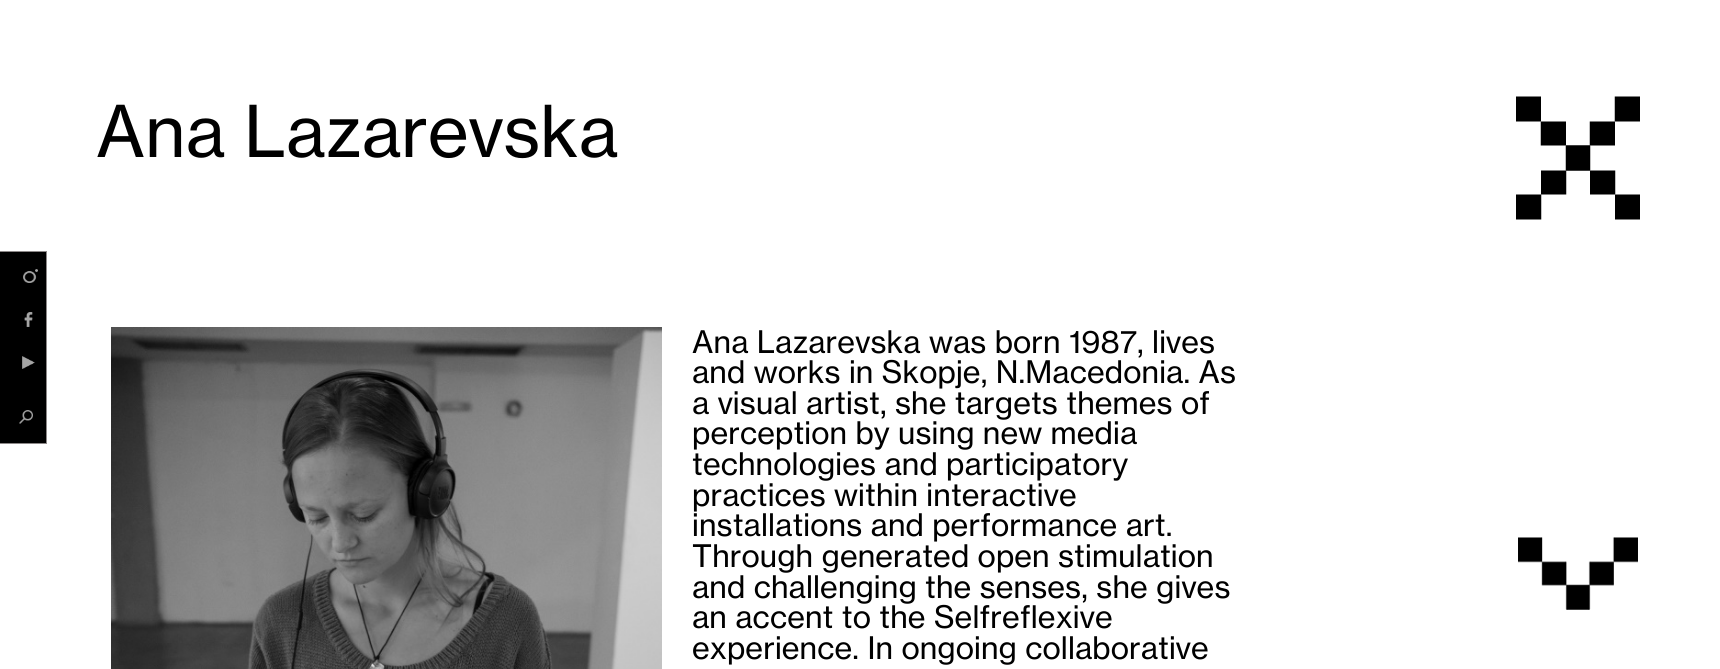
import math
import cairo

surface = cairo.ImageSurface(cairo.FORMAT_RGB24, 1720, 669)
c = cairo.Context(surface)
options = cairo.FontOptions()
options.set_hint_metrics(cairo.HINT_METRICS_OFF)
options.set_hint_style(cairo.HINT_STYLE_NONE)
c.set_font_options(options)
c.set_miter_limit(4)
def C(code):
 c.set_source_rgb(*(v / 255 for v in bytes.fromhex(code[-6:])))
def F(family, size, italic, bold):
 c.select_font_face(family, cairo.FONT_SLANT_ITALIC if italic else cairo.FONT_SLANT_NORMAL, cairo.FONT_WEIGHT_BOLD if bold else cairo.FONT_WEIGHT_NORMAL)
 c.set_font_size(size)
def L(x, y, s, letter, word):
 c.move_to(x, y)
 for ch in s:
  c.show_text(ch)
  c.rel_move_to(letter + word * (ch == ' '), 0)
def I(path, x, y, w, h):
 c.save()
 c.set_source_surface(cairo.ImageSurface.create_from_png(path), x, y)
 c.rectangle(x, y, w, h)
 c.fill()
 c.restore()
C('ffffff')
c.paint()
C('000000')
c.rectangle(-.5,251.5,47,192)
c.fill_preserve()
C('8c8888')
c.set_line_width(1)
c.stroke()
I('1.png',23,269,15,14)
I('2.png',24,312,9,15)
I('3.png',22,356,13,13)
I('4.png',19,410,14,14)
F('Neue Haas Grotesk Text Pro',70.25,0,0)
C('000000')
L(96,157,'Ana Lazarevska',.15,0)
I('5.png',111,327,551,342)
F('Neue Haas Grotesk Text Pro',30.6,0,0)
L(692,353,'Ana Lazarevska was born 1987, lives',.15,0)
L(692,383,'and works in Skopje, N.Macedonia. As',.15,0)
L(692,414,'a visual artist, she targets themes of',.15,0)
L(692,444,'perception by using new media',.15,0)
L(692,475,'technologies and participatory',.15,0)
L(692,506,'practices within interactive',.15,0)
L(692,536,'installations and performance art.',.15,0)
L(692,567,'Through generated open stimulation',.15,0)
L(692,598,'and challenging the senses, she gives',.15,0)
L(692,628,'an accent to the Selfreflexive',.15,0)
L(692,659,'experience. In ongoing collaborative',.15,0)
I('6.png',1516,96,124,124)
I('7.png',1518,537,120,73)
surface.write_to_png('o.png')
